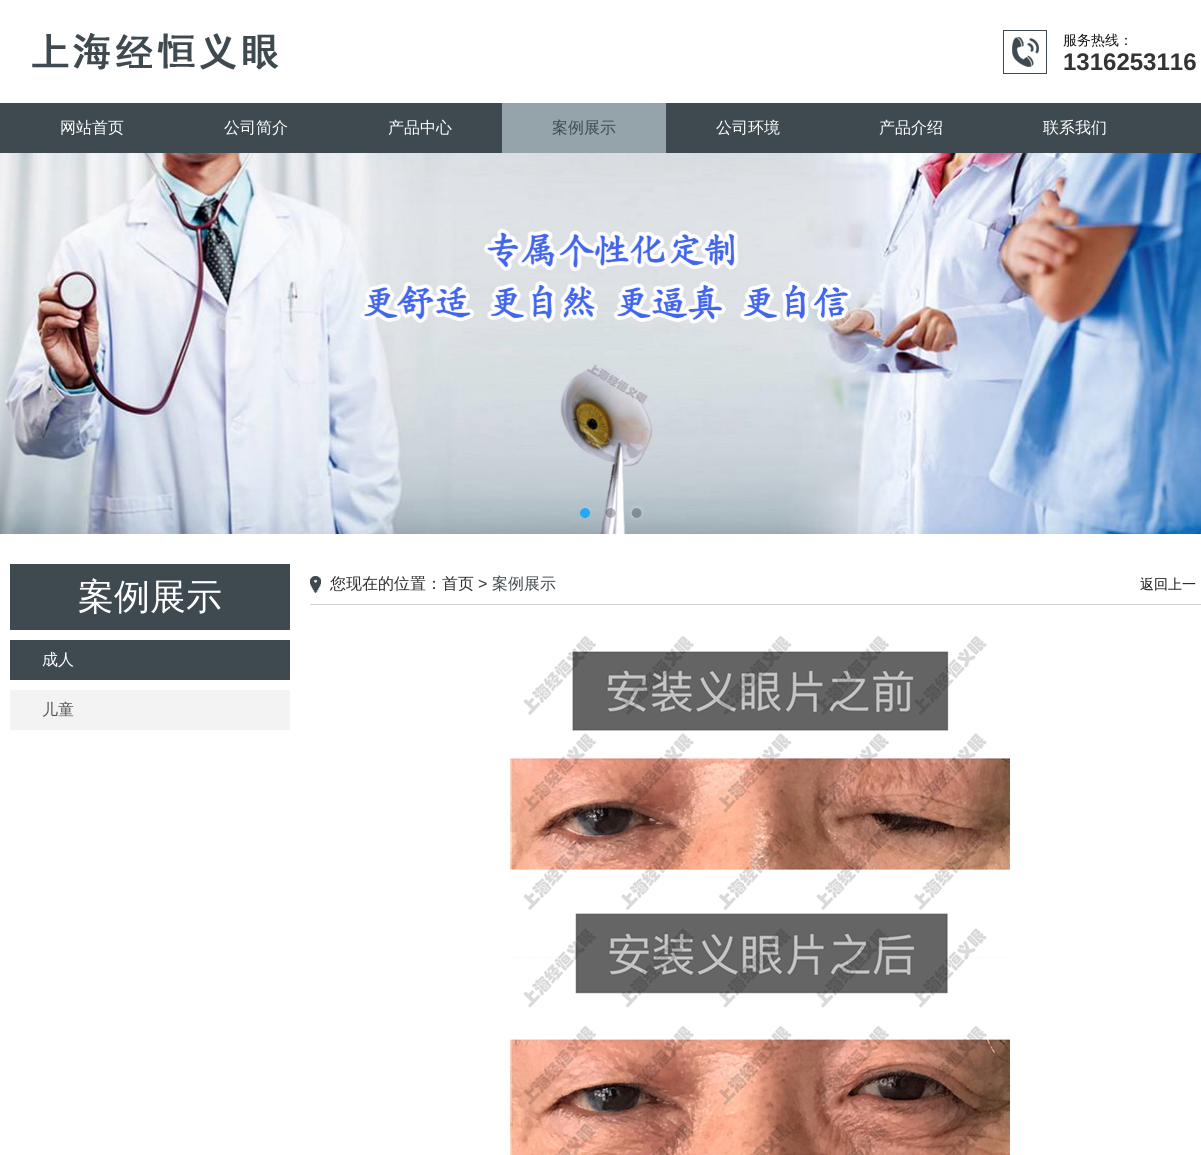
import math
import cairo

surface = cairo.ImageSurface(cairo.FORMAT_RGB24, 1201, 1155)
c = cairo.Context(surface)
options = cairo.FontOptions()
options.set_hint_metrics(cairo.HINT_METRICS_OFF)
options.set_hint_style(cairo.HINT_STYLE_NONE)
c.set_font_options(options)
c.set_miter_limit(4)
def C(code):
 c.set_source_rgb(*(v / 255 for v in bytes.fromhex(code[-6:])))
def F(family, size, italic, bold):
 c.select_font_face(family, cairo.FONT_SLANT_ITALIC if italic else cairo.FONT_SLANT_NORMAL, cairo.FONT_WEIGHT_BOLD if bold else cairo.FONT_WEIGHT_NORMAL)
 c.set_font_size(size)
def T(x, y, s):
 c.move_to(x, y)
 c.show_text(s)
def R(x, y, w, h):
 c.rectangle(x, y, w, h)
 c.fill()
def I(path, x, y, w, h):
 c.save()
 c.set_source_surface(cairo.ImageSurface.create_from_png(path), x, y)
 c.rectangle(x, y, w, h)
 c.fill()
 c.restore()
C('ffffff')
c.paint()
I('1.png',32,33,247,37)
I('2.png',1003,30,44,44)
F('WenQuanYi Zen Hei Medium',14,0,0)
C('131313')
T(1063,45,'服务热线：')
F('Liberation Sans',24,0,1)
C('333333')
T(1063,70,'1316253116')
C('3f4a50')
R(0,103,1201,50)
F('WenQuanYi Zen Hei Medium',16,0,0)
C('ffffff')
T(60,133,'网站首页')
T(224,133,'公司简介')
T(388,133,'产品中心')
C('95a3ab')
R(502,103,164,50)
C('3f4a50')
T(552,133,'案例展示')
C('ffffff')
T(716,133,'公司环境')
T(879,133,'产品介绍')
T(1043,133,'联系我们')
I('3.png',0,153,1201,381)
I('4.png',580,508,10,10)
I('5.png',604,507,13,12)
I('6.png',630,506,14,14)
C('3f4a50')
R(10,564,280,66)
F('WenQuanYi Zen Hei Medium',36,0,0)
C('ffffff')
T(78,609,'案例展示')
C('3f4a50')
R(10,640,280,40)
F('WenQuanYi Zen Hei Medium',16,0,0)
C('ffffff')
T(42,665,'成人')
C('f3f3f3')
R(10,690,280,40)
C('555556')
T(42,715,'儿童')
C('d3d3d3')
R(310,604,891,1)
I('7.png',310,576,11,17)
C('2f2b2c')
T(330,589,'您现在的位置：首页')
F('Liberation Sans',16,0,0)
T(478,589,'>')
F('WenQuanYi Zen Hei Medium',16,0,0)
C('3f4a50')
T(492,589,'案例展示')
F('WenQuanYi Zen Hei Medium',14,0,0)
C('131313')
T(1140,589,'返回上一')
I('8.png',510,636,500,519)
surface.write_to_png('o.png')
